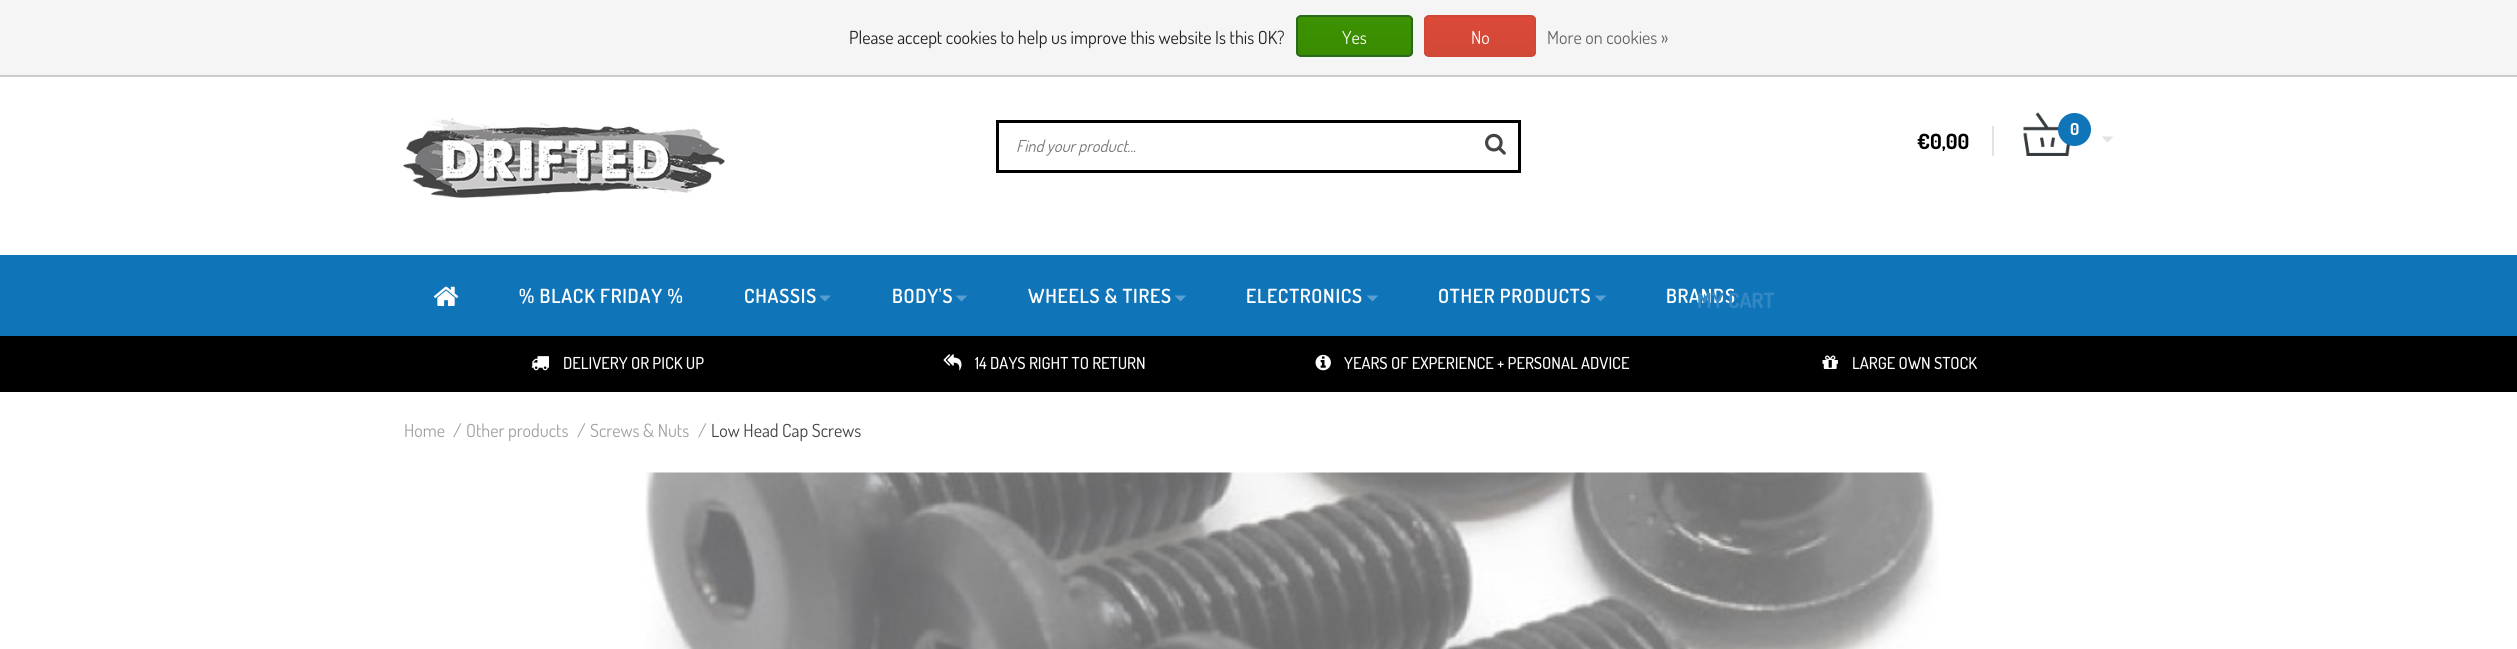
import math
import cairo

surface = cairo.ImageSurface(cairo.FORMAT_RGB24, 2517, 649)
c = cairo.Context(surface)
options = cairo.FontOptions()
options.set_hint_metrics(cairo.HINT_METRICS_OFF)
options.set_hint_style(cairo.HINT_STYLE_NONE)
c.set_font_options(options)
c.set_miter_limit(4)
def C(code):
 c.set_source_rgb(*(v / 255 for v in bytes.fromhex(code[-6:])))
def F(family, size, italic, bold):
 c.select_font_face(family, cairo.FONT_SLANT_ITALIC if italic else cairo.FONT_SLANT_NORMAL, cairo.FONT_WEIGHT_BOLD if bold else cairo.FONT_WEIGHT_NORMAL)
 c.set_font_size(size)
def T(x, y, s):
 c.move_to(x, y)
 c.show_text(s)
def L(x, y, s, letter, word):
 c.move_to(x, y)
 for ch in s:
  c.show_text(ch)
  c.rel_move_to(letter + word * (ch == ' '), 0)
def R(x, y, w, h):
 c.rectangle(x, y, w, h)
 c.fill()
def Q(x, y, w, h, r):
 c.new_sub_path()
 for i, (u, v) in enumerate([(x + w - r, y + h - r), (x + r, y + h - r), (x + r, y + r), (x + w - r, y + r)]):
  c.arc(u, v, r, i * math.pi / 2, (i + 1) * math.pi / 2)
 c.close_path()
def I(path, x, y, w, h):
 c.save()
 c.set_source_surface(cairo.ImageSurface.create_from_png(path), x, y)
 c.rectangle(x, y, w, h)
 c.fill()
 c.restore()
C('ffffff')
c.paint()
C('f5f5f5')
R(0,0,2517,75)
C('cccccc')
R(0,75,2517,2)
F('Dosis',18,0,0)
C('222222')
T(849,44,'Please accept cookies to help us improve this website Is this OK?')
c.save()
Q(1296,15,117,42,5)
c.clip()
gradient = cairo.LinearGradient(1355,16,1355,56)
gradient.add_color_stop_rgba(0,0.235,0.576,0,1)
gradient.add_color_stop_rgba(1,0.224,0.541,0,1)
c.set_source(gradient)
R(1296,17,117,39)
c.restore()
Q(1297,16,115,40,4)
C('29691d')
c.stroke()
C('ffffff')
T(1342,44,'Yes')
c.save()
Q(1424,15,112,42,5)
c.clip()
gradient = cairo.LinearGradient(1480,16,1480,56)
gradient.add_color_stop_rgba(0,0.863,0.29,0.22,1)
gradient.add_color_stop_rgba(1,0.82,0.282,0.212,1)
c.set_source(gradient)
R(1424,17,112,39)
c.restore()
Q(1425,16,110,40,4)
C('d14836')
c.stroke()
C('ffffff')
T(1471,44,'No')
C('666666')
T(1547,44,'More on cookies »')
I('1.png',403,118,322,80)
c.rectangle(997.5,121.5,522,50)
C('000000')
c.set_line_width(3)
c.stroke()
F('Dosis',16.5,1,0)
C('757575')
T(1016,152,'Find your product...')
I('2.png',1485,133,21,22)
I('3.png',2023,112,91,44)
C('e3e3e3')
R(1992,126,2,30)
C('1074b9')
c.arc(2074.5,129.5,16.5,0,2 * math.pi)
c.fill()
F('Dosis',16.5,0,1)
C('ffffff')
T(2070,135,'0')
F('Dosis',21,0,1)
C('000000')
T(1917,149,'€0,00')
C('1074b9')
R(0,255,2517,81)
F('Dosis SemiBold',19.5,0,0)
C('ffffff')
L(1666,303,'BRANDS',.75,0)
F('Dosis',21,0,1)
C('3388c3')
T(1697,308,'MY CART')
I('4.png',433,286,26,20)
F('Dosis SemiBold',19.5,0,0)
C('ffffff')
L(519,303,'% BLACK FRIDAY %',.75,0)
L(744,303,'CHASSIS',.75,0)
C('589ece')
c.new_path()
c.move_to(819,295.5)
c.line_to(831,295.5)
c.line_to(825,301.5)
c.close_path()
c.fill()
C('ffffff')
L(892,303,'BODY\'S',.75,0)
C('589ece')
c.new_path()
c.move_to(955.5,295.5)
c.line_to(967.5,295.5)
c.line_to(961.5,301.5)
c.close_path()
c.fill()
C('ffffff')
L(1028,303,'WHEELS & TIRES',.75,0)
C('589ece')
c.new_path()
c.move_to(1174.5,295.5)
c.line_to(1186.5,295.5)
c.line_to(1180.5,301.5)
c.close_path()
c.fill()
C('ffffff')
L(1246,303,'ELECTRONICS',.75,0)
C('589ece')
c.new_path()
c.move_to(1366.5,295.5)
c.line_to(1378.5,295.5)
c.line_to(1372.5,301.5)
c.close_path()
c.fill()
C('ffffff')
L(1438,303,'OTHER PRODUCTS',.75,0)
C('589ece')
c.new_path()
c.move_to(1594.5,295.5)
c.line_to(1606.5,295.5)
c.line_to(1600.5,301.5)
c.close_path()
c.fill()
C('000000')
R(0,336,2517,56)
I('5.png',531,356,18,15)
F('Dosis Medium',16.5,0,0)
C('ffffff')
T(563,369,'DELIVERY OR PICK UP')
I('6.png',943,354,19,17)
T(975,369,'14 DAYS RIGHT TO RETURN')
I('7.png',1315,354,16,17)
T(1344,369,'YEARS OF EXPERIENCE + PERSONAL ADVICE')
I('8.png',1822,355,16,14)
T(1852,369,'LARGE OWN STOCK')
F('Dosis',18,0,0)
C('a1a1a1')
T(404,437,'Home')
C('999999')
L(453,437,'/',-4,0)
C('a1a1a1')
T(466,437,'Other products')
C('999999')
L(577,437,'/',-4,0)
C('a1a1a1')
T(590,437,'Screws & Nuts')
C('999999')
L(698,437,'/',-4,0)
C('434343')
T(711,437,'Low Head Cap Screws')
I('9.png',645,472,1294,177)
surface.write_to_png('o.png')
